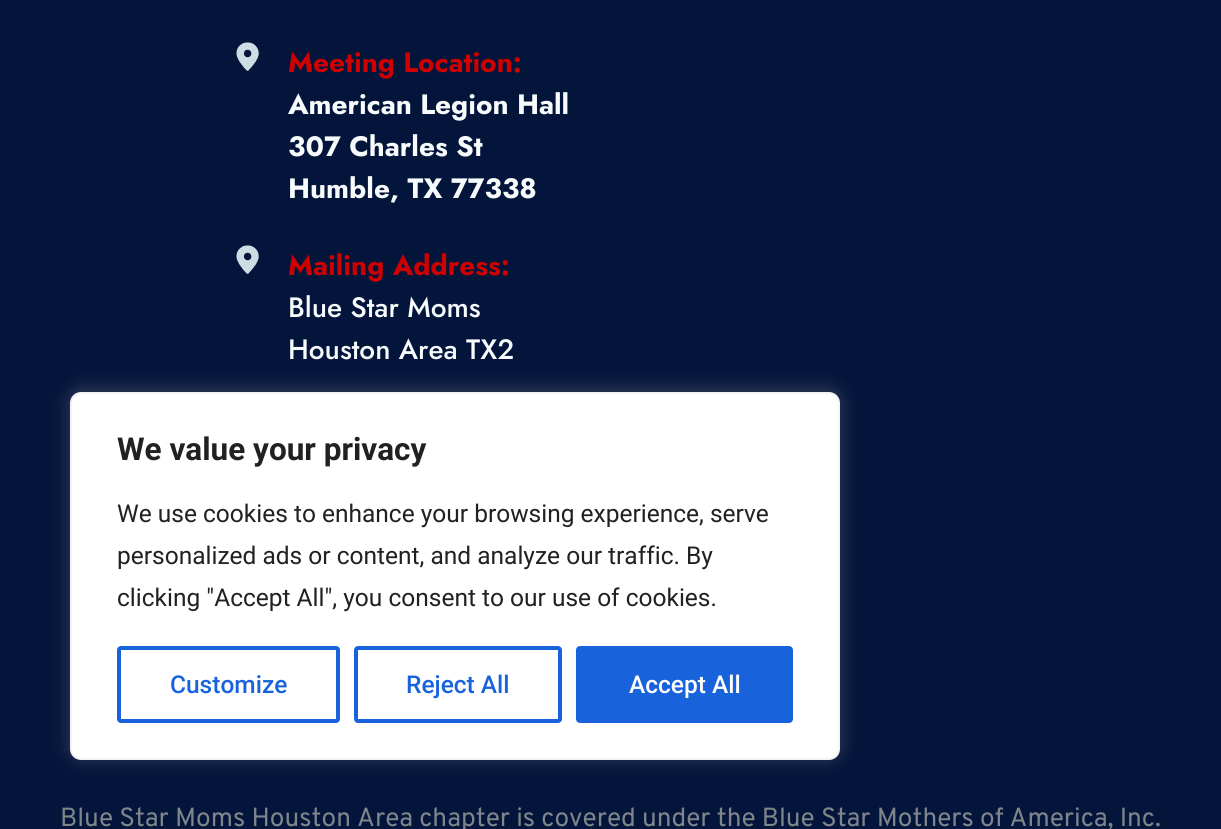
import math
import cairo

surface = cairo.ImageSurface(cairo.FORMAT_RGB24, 1221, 829)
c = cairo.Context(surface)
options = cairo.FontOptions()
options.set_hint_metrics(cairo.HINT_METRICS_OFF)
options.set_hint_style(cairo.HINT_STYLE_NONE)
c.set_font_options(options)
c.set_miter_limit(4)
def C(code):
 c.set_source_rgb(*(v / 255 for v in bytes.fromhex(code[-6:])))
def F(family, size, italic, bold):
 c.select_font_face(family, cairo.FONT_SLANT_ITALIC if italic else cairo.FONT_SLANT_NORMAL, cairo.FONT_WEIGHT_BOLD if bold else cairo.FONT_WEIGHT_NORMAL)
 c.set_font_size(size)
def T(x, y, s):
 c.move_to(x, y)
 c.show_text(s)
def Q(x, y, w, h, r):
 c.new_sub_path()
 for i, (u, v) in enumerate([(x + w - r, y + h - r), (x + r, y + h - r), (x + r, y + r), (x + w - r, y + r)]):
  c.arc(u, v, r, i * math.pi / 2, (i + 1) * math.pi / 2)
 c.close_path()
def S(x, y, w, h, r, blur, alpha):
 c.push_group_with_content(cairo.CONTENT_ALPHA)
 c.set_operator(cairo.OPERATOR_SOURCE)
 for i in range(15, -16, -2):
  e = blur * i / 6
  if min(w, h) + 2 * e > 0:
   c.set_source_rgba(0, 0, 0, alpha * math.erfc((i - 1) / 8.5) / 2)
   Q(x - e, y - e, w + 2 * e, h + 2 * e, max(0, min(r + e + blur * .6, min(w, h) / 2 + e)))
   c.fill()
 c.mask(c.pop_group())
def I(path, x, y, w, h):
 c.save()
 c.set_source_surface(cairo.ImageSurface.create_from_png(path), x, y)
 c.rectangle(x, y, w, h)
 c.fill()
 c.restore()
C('04153b')
c.paint()
I('1.png',236,42,23,29)
F('Jost',28,0,1)
C('ce0000')
T(288,72,'Meeting Location:')
C('f8fbfc')
T(288,114,'American Legion Hall')
T(288,156,'307 Charles St')
T(288,198,'Humble, TX 77338')
I('1.png',236,245,23,29)
C('ce0000')
T(288,275,'Mailing Address:')
F('Jost Medium',28,0,0)
C('f8fbfc')
T(288,317,'Blue Star Moms')
T(288,359,'Houston Area TX2')
F('Overpass',26.25,0,0)
C('80858b')
T(60,826,'Blue Star Moms Houston Area chapter is covered under the Blue Star Mothers of America, Inc.')
C('acabab')
S(70,390,770,368,11,9,.3)
C('ffffff')
Q(71,393,768,366,10)
c.fill_preserve()
C('f4f4f4')
c.stroke()
F('Roboto',31.5,0,1)
C('212121')
T(117,460,'We value your privacy')
F('Roboto',24.5,0,0)
T(117,522,'We use cookies to enhance your browsing experience, serve')
T(117,564,'personalized ads or content, and analyze our traffic. By')
T(117,606,'clicking "Accept All", you consent to our use of cookies.')
Q(119,648,219,73,2)
C('1863dc')
c.set_line_width(4)
c.stroke()
F('Roboto Medium',24.5,0,0)
T(170,693,'Customize')
Q(356,648,204,73,2)
c.stroke()
T(406,693,'Reject All')
Q(578,648,213,73,2)
c.fill_preserve()
c.stroke()
C('ffffff')
T(629,693,'Accept All')
surface.write_to_png('o.png')
